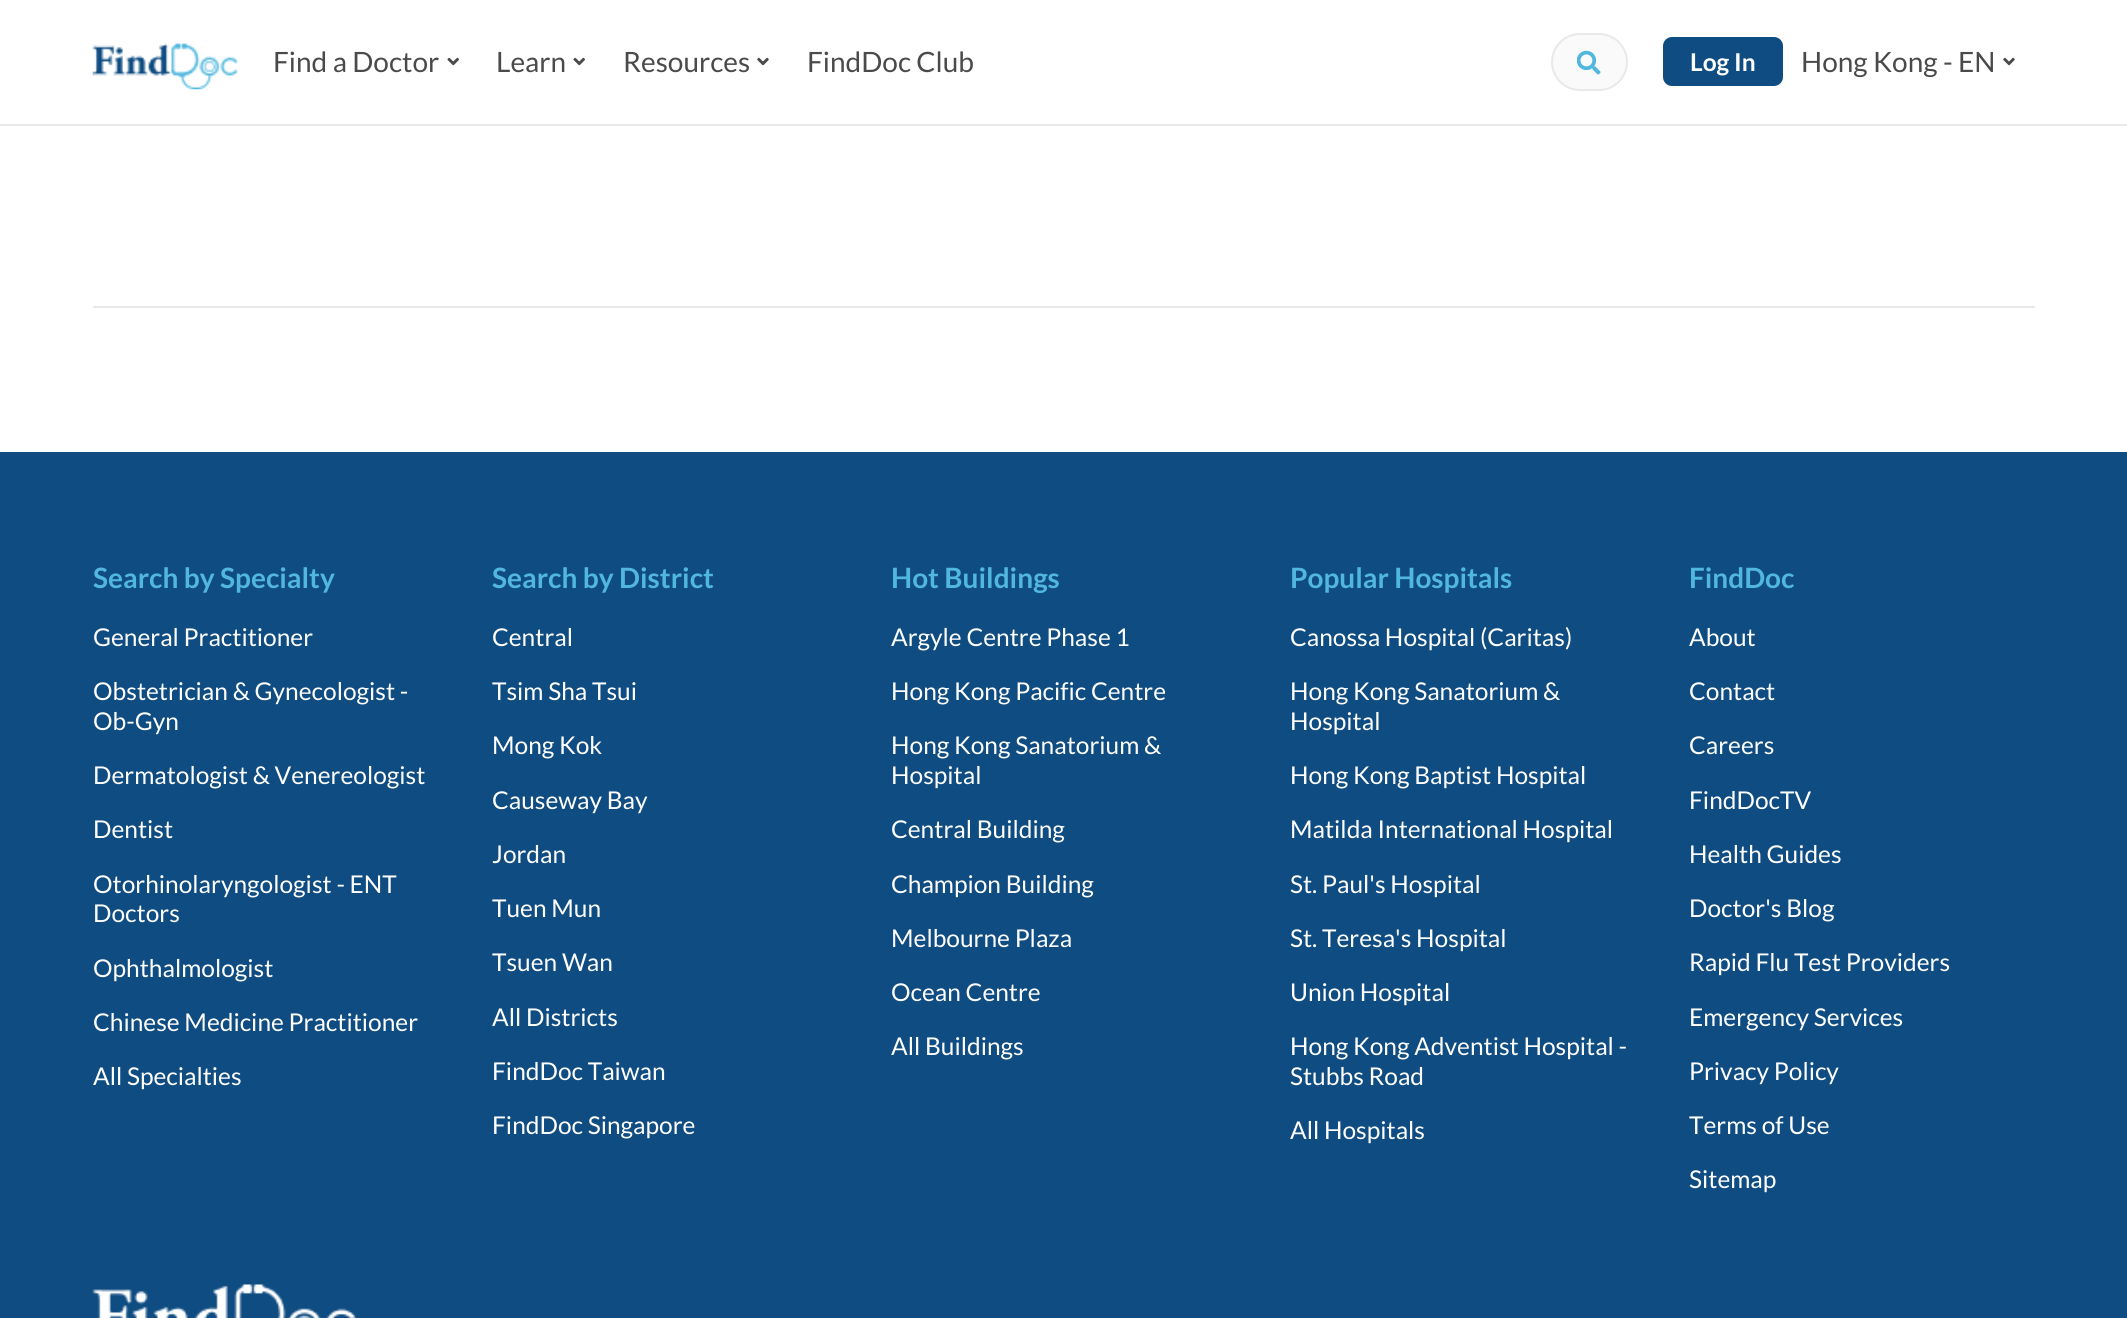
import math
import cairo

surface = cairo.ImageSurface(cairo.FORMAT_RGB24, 2127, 1318)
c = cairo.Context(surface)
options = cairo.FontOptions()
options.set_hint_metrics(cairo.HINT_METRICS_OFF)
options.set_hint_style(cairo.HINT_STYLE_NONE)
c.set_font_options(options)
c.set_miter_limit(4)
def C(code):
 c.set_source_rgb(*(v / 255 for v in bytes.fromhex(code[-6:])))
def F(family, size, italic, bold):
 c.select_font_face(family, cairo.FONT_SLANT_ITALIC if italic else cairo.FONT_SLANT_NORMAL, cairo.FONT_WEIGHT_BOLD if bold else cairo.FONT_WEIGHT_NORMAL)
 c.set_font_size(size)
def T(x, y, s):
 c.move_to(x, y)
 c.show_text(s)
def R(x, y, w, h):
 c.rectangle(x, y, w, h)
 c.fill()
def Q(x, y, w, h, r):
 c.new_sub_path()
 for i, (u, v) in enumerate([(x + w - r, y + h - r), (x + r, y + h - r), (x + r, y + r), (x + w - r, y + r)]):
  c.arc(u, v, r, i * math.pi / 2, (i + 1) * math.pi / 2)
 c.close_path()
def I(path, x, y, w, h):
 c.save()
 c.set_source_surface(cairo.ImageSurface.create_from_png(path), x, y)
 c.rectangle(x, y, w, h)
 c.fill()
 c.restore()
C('ffffff')
c.paint()
C('e9e9e9')
R(0,124,2127,2)
I('1.png',92,43,146,47)
F('Lato',28,0,0)
C('4a4a4a')
T(273,72,'Find a Doctor')
I('2.png',447,57,12,9)
T(496,72,'Learn')
I('2.png',573,57,12,9)
T(623,72,'Resources')
I('3.png',757,57,12,9)
T(807,72,'FindDoc Club')
C('fafafa')
Q(1552,34,75,56,28)
c.fill_preserve()
C('e9e9e9')
c.stroke()
I('4.png',1577,50,24,25)
C('0f4c81')
Q(1664,38,118,47,8)
c.fill_preserve()
c.stroke()
F('Lato',24.5,0,1)
C('ffffff')
T(1690,71,'Log In')
F('Lato',28,0,0)
C('4a4a4a')
T(1801,72,'Hong Kong - EN')
I('3.png',2003,57,12,9)
C('e9e9e9')
R(93,306,1942,2)
C('0f4c81')
R(0,452,2127,866)
F('Lato',28,0,1)
C('51b7de')
T(93,588,'Search by Specialty')
F('Lato',24.5,0,0)
C('ffffff')
T(93,646,'General Practitioner')
T(93,700,'Obstetrician & Gynecologist -')
T(93,730,'Ob-Gyn')
T(93,784,'Dermatologist & Venereologist')
T(93,838,'Dentist')
T(93,893,'Otorhinolaryngologist - ENT')
T(93,922,'Doctors')
T(93,977,'Ophthalmologist')
T(93,1031,'Chinese Medicine Practitioner')
T(93,1085,'All Specialties')
F('Lato',28,0,1)
C('51b7de')
T(492,588,'Search by District')
F('Lato',24.5,0,0)
C('ffffff')
T(492,646,'Central')
T(492,700,'Tsim Sha Tsui')
T(492,754,'Mong Kok')
T(492,809,'Causeway Bay')
T(492,863,'Jordan')
T(492,917,'Tuen Mun')
T(492,971,'Tsuen Wan')
T(492,1026,'All Districts')
T(492,1080,'FindDoc Taiwan')
T(492,1134,'FindDoc Singapore')
F('Lato',28,0,1)
C('51b7de')
T(891,588,'Hot Buildings')
F('Lato',24.5,0,0)
C('ffffff')
T(891,646,'Argyle Centre Phase 1')
T(891,700,'Hong Kong Pacific Centre')
T(891,754,'Hong Kong Sanatorium &')
T(891,784,'Hospital')
T(891,838,'Central Building')
T(891,893,'Champion Building')
T(891,947,'Melbourne Plaza')
T(891,1001,'Ocean Centre')
T(891,1055,'All Buildings')
F('Lato',28,0,1)
C('51b7de')
T(1290,588,'Popular Hospitals')
F('Lato',24.5,0,0)
C('ffffff')
T(1290,646,'Canossa Hospital (Caritas)')
T(1290,700,'Hong Kong Sanatorium &')
T(1290,730,'Hospital')
T(1290,784,'Hong Kong Baptist Hospital')
T(1290,838,'Matilda International Hospital')
T(1290,893,'St. Paul\'s Hospital')
T(1290,947,'St. Teresa\'s Hospital')
T(1290,1001,'Union Hospital')
T(1290,1055,'Hong Kong Adventist Hospital -')
T(1290,1085,'Stubbs Road')
T(1290,1139,'All Hospitals')
F('Lato',28,0,1)
C('51b7de')
T(1689,588,'FindDoc')
F('Lato',24.5,0,0)
C('ffffff')
T(1689,646,'About')
T(1689,700,'Contact')
T(1689,754,'Careers')
T(1689,809,'FindDocTV')
T(1689,863,'Health Guides')
T(1689,917,'Doctor\'s Blog')
T(1689,971,'Rapid Flu Test Providers')
T(1689,1026,'Emergency Services')
T(1689,1080,'Privacy Policy')
T(1689,1134,'Terms of Use')
T(1689,1188,'Sitemap')
I('5.png',92,1284,264,34)
surface.write_to_png('o.png')
